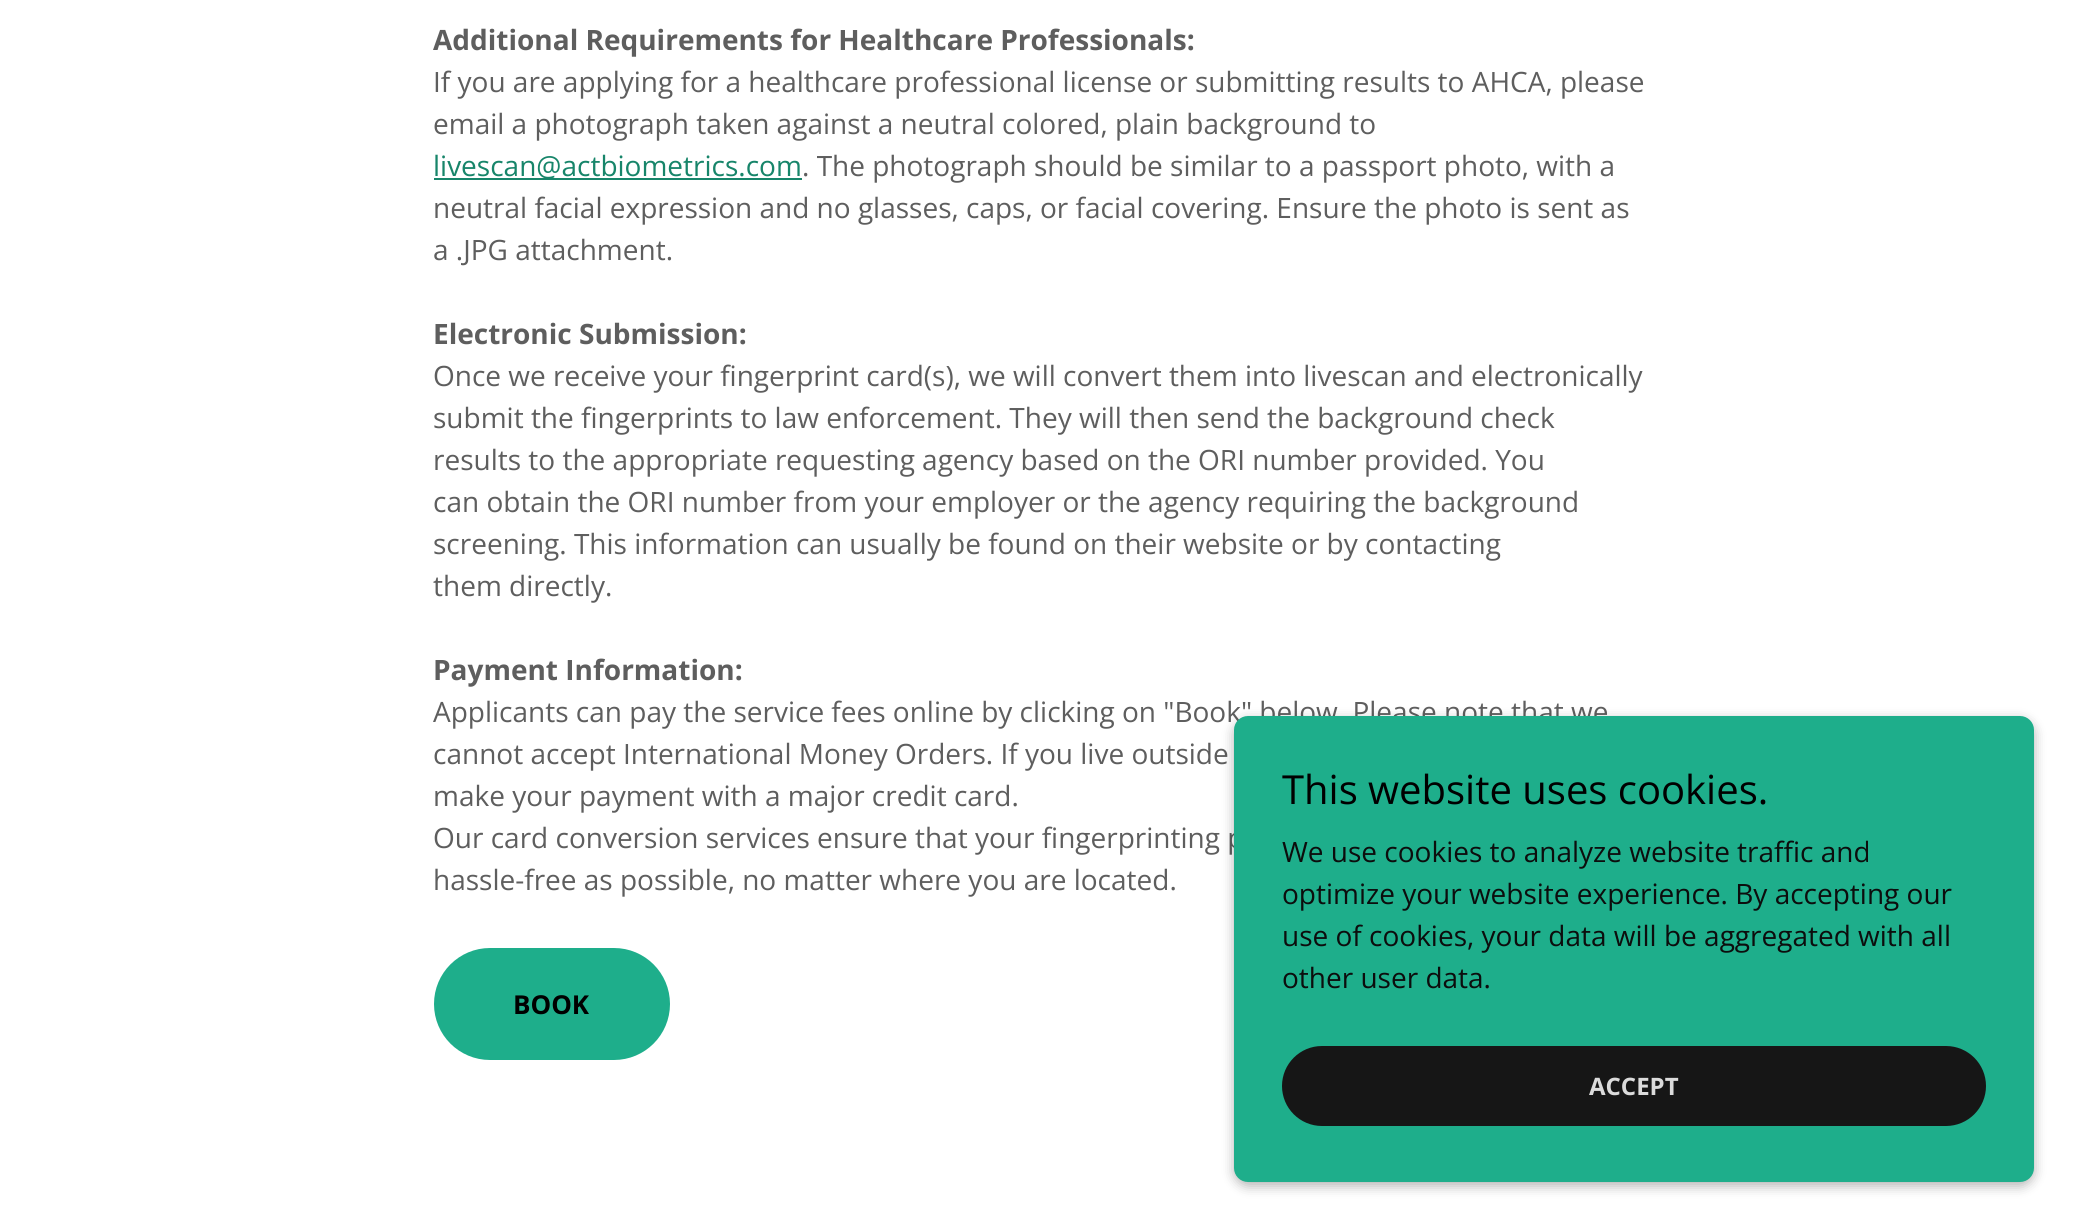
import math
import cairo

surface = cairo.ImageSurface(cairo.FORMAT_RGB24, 2082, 1230)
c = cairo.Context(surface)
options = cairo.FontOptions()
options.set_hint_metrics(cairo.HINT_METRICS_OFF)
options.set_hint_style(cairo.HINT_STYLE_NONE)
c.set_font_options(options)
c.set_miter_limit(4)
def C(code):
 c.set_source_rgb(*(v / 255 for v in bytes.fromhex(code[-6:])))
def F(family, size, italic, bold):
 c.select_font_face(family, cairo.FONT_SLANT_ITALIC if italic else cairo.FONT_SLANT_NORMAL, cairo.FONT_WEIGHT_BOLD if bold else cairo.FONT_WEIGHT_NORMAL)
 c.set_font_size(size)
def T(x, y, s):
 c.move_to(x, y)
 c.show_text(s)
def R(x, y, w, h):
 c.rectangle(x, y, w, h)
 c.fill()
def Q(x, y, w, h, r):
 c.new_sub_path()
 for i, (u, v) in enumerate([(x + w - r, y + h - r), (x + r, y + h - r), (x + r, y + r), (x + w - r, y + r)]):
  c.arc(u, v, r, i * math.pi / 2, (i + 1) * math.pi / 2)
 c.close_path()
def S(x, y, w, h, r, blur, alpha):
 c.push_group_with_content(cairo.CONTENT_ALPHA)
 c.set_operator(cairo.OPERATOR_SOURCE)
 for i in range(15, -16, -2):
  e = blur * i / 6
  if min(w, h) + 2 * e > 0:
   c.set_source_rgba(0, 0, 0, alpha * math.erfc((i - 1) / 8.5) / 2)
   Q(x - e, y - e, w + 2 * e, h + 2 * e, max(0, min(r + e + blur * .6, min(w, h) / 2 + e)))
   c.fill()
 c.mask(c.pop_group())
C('ffffff')
c.paint()
F('Open Sans',28,0,1)
C('5e5e5e')
T(433,50,'Additional Requirements for Healthcare Professionals:')
F('Open Sans',28,0,0)
T(433,92,'If you are applying for a healthcare professional license or submitting results to AHCA, please')
T(433,134,'email a photograph taken against a neutral colored, plain background to')
C('17856a')
R(434,178,368,2)
T(433,176,'livescan@actbiometrics.com')
C('5e5e5e')
T(802,176,'. The photograph should be similar to a passport photo, with a')
T(433,218,'neutral facial expression and no glasses, caps, or facial covering. Ensure the photo is sent as')
T(433,260,'a .JPG attachment.')
F('Open Sans',28,0,1)
T(433,344,'Electronic Submission:')
F('Open Sans',28,0,0)
T(433,386,'Once we receive your fingerprint card(s), we will convert them into livescan and electronically')
T(433,428,'submit the fingerprints to law enforcement. They will then send the background check')
T(433,470,'results to the appropriate requesting agency based on the ORI number provided. You')
T(433,512,'can obtain the ORI number from your employer or the agency requiring the background')
T(433,554,'screening. This information can usually be found on their website or by contacting')
T(433,596,'them directly.')
F('Open Sans',28,0,1)
T(433,680,'Payment Information:')
F('Open Sans',28,0,0)
T(433,722,'Applicants can pay the service fees online by clicking on "Book" below. Please note that we')
T(433,764,'cannot accept International Money Orders. If you live outside')
T(433,806,'make your payment with a major credit card.')
T(433,848,'Our card conversion services ensure that your fingerprinting p')
T(433,890,'hassle-free as possible, no matter where you are located.')
C('1eae8b')
Q(434,948,236,112,56)
c.fill()
F('Open Sans',26,0,1)
C('000000')
T(513,1014,'BOOK')
C('000000')
S(1234,720,800,466,14,6,.3)
C('1eae8b')
Q(1234,716,800,466,14)
c.fill()
F('Open Sans',40,0,0)
C('000000')
T(1282,804,'This website uses cookies.')
F('Open Sans',28,0,0)
C('0c0d0d')
T(1282,862,'We use cookies to analyze website traffic and')
T(1282,904,'optimize your website experience. By accepting our')
T(1282,946,'use of cookies, your data will be aggregated with all')
T(1282,988,'other user data.')
C('161616')
Q(1282,1046,704,80,40)
c.fill()
F('Open Sans',24,0,1)
C('dbdbdb')
T(1589,1095,'ACCEPT')
surface.write_to_png('o.png')
